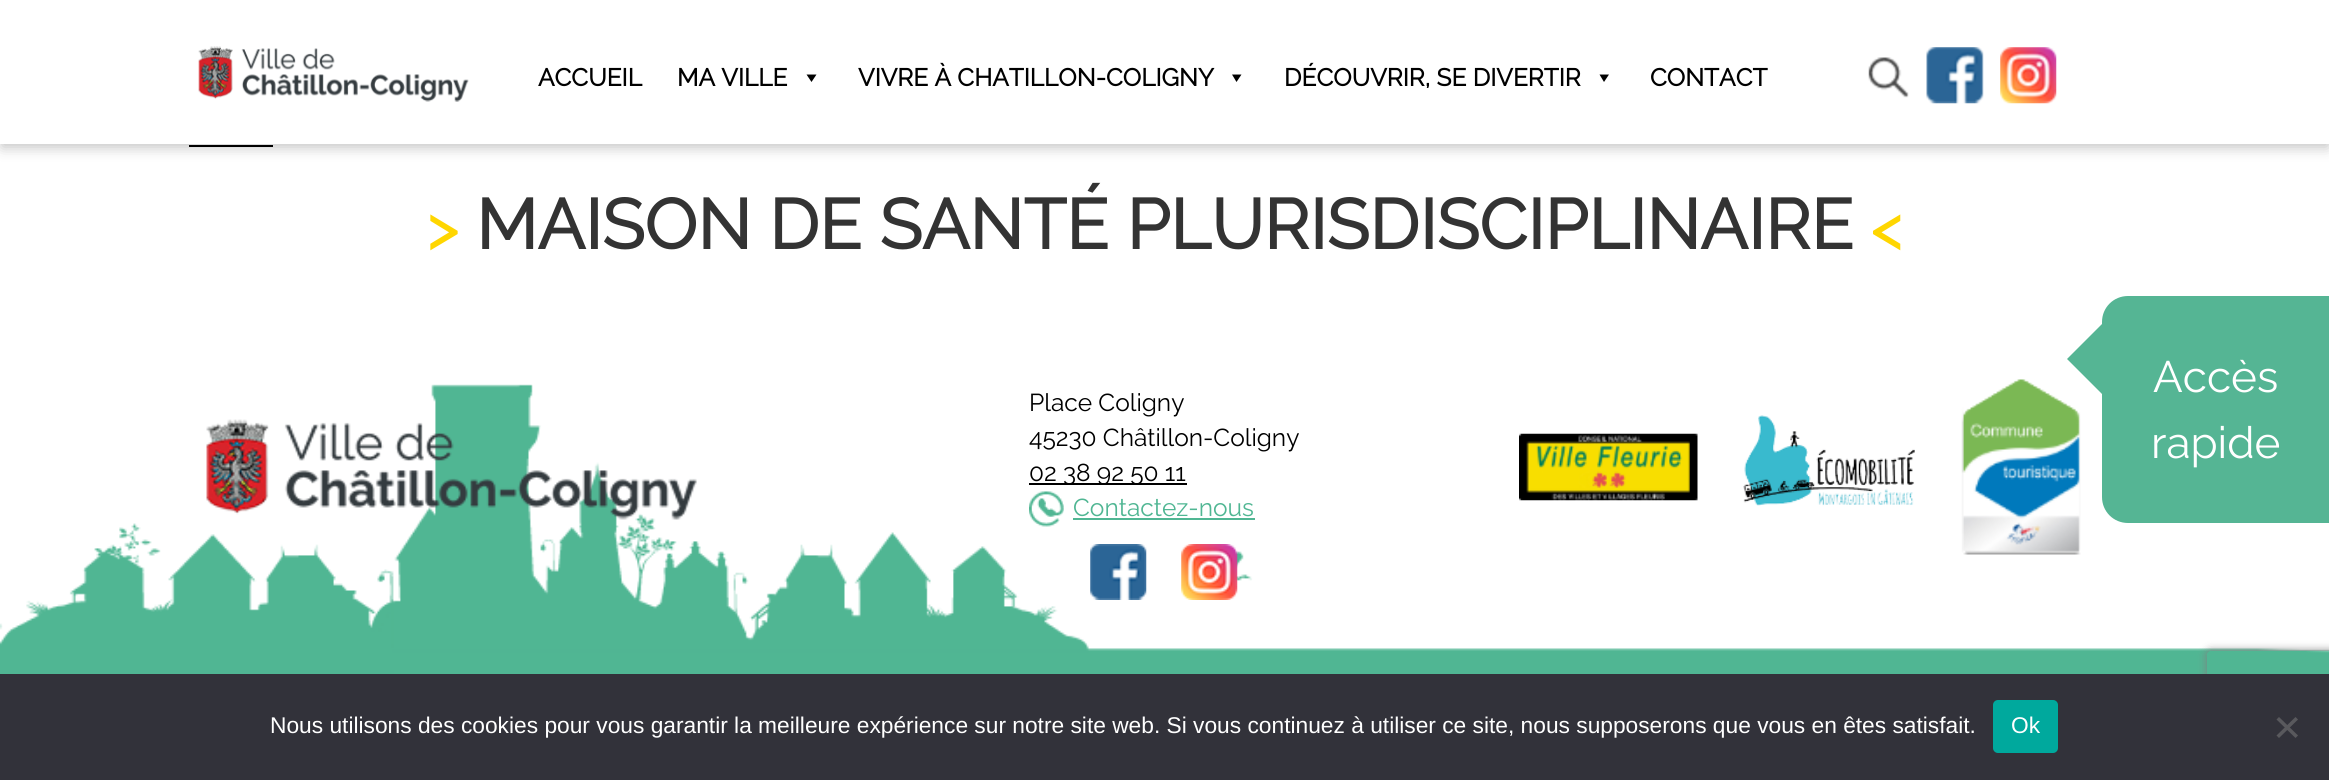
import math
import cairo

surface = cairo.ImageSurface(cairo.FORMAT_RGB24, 2329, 780)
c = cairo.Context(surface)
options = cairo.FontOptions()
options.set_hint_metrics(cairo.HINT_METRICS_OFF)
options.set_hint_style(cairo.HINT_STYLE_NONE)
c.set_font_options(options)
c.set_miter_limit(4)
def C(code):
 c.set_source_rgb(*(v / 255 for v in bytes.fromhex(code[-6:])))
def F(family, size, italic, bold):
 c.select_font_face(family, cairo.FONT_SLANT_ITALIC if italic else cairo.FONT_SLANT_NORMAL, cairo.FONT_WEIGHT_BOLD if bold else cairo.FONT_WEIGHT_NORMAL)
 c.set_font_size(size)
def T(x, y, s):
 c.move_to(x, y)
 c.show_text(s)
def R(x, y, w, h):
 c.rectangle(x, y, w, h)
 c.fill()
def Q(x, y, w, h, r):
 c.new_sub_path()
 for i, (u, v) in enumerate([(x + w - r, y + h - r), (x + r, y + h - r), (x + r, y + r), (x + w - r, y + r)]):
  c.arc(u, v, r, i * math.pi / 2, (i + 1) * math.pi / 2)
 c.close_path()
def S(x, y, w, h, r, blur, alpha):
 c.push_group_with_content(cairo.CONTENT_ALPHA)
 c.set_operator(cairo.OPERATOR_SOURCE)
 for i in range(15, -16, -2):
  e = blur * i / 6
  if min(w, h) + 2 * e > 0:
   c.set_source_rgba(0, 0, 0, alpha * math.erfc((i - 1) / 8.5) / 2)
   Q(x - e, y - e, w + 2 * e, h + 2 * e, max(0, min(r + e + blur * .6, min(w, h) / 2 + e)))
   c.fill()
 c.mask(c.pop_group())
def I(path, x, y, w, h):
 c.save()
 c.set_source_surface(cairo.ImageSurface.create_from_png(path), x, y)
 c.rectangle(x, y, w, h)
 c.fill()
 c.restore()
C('ffffff')
c.paint()
C('000000')
R(189,145,84,2)
C('000000')
S(2,7,2326,140,0,7,.25)
C('ffffff')
R(0,0,2329,144)
I('1.png',198,46,271,56)
F('Raleway',24.5,0,1)
C('000000')
T(538,86,'ACCUEIL')
T(677,86,'MA VILLE')
c.new_path()
c.move_to(816.5,74.5)
c.line_to(811.5,82)
c.line_to(806.5,74.5)
c.close_path()
c.fill()
T(858,86,'VIVRE À CHATILLON-COLIGNY')
c.new_path()
c.move_to(1241.5,74.5)
c.line_to(1236.5,82)
c.line_to(1232,74.5)
c.close_path()
c.fill()
T(1284,86,'DÉCOUVRIR, SE DIVERTIR')
c.new_path()
c.move_to(1609,74.5)
c.line_to(1604,82)
c.line_to(1599.5,74.5)
c.close_path()
c.fill()
T(1650,86,'CONTACT')
I('2.png',1868,57,41,41)
I('3.png',1926,47,58,57)
I('4.png',2000,47,57,57)
F('Raleway',61,0,1)
C('ffd600')
T(427,249,'>')
F('Raleway',70,0,1)
C('333333')
T(476,249,'MAISON DE SANTÉ PLURISDISCIPLINAIRE')
F('Raleway',61,0,1)
C('ffd600')
T(1871,249,'<')
I('5.png',0,384,2329,290)
I('6.png',206,419,491,101)
F('Raleway Thin',24.5,0,0)
C('000000')
T(1029,411,'Place Coligny')
T(1029,446,'45230 Châtillon-Coligny')
R(1029,483,158,2)
T(1029,481,'02 38 92 50 11')
I('7.png',1029,491,35,36)
C('50b693')
T(1073,516,'Contactez-nous')
R(1073,518,182,2)
I('8.png',1090,544,57,56)
I('9.png',1181,544,57,56)
I('10.png',1519,433,179,68)
I('11.png',1743,415,172,91)
I('12.png',1961,379,120,176)
C('55b594')
c.new_path()
c.move_to(2102,324)
c.line_to(2102,394)
c.line_to(2067,359)
c.close_path()
c.fill()
c.new_path()
c.move_to(2128,296)
c.line_to(2329,296)
c.line_to(2329,523)
c.line_to(2128,523)
c.curve_to(2113.5,523,2102,511.5,2102,497)
c.line_to(2102,322)
c.curve_to(2102,307.5,2113.5,296,2128,296)
c.close_path()
c.fill()
F('Raleway Thin',44,0,0)
C('ffffff')
T(2153,392,'Accès')
T(2151,458,'rapide')
c.save()
c.set_fill_rule(cairo.FILL_RULE_EVEN_ODD)
c.new_path()
c.move_to(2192,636)
c.line_to(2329,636)
c.line_to(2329,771)
c.line_to(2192,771)
c.close_path()
c.move_to(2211,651)
c.line_to(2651,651)
c.curve_to(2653,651,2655,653,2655,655)
c.line_to(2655,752)
c.curve_to(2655,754,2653,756,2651,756)
c.line_to(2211,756)
c.curve_to(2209,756,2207,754,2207,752)
c.line_to(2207,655)
c.curve_to(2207,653,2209,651,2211,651)
c.close_path()
c.clip()
C('808080')
S(2207,651,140,105,4,4.5,1)
c.restore()
C('32323a')
R(0,674,2329,106)
F('Liberation Sans',22.75,0,0)
C('ffffff')
T(270,733,'Nous utilisons des cookies pour vous garantir la meilleure expérience sur notre site web. Si vous continuez à utiliser ce site, nous supposerons que vous en êtes satisfait.')
C('00a99d')
Q(1993,700,65,53,5)
c.fill()
C('ffffff')
T(2011,733,'Ok')
C('59595d')
c.new_path()
c.move_to(2295.5,717)
c.line_to(2298,719.5)
c.line_to(2279,738)
c.line_to(2276.5,735.5)
c.close_path()
c.fill()
c.new_path()
c.move_to(2276.5,719.5)
c.line_to(2279,717)
c.line_to(2298,735.5)
c.line_to(2295.5,738)
c.close_path()
c.fill()
surface.write_to_png('o.png')
